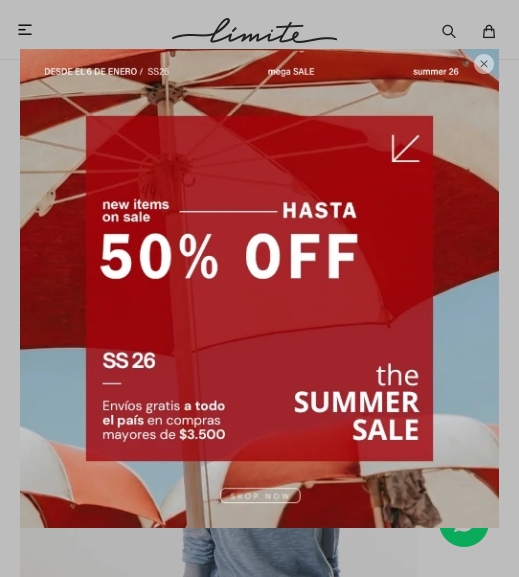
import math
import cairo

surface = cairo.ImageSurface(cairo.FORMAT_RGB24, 519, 577)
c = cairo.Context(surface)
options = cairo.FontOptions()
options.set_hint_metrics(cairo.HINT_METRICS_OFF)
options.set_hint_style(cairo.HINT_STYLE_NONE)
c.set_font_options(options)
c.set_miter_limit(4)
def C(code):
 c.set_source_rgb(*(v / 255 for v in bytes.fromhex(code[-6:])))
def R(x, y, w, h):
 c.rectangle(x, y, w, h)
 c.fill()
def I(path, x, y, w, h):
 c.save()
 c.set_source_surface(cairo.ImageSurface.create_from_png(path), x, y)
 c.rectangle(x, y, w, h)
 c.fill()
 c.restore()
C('bdbdbd')
c.paint()
I('1.png',18,24,14,11)
I('2.png',172,18,165,25)
I('3.png',442,24,14,14)
I('4.png',483,24,12,15)
C('b0b0b0')
R(0,59,519,1)
I('5.png',20,528,398,49)
C('0bab5c')
c.arc(464,522,25,0,2 * math.pi)
c.fill()
I('6.png',20,49,479,479)
c.set_source_rgba(1,1,1,0.5)
c.arc(484,64,10,0,2 * math.pi)
c.fill()
I('7.png',480,60,8,8)
I('8.png',454,528,18,5)
surface.write_to_png('o.png')
